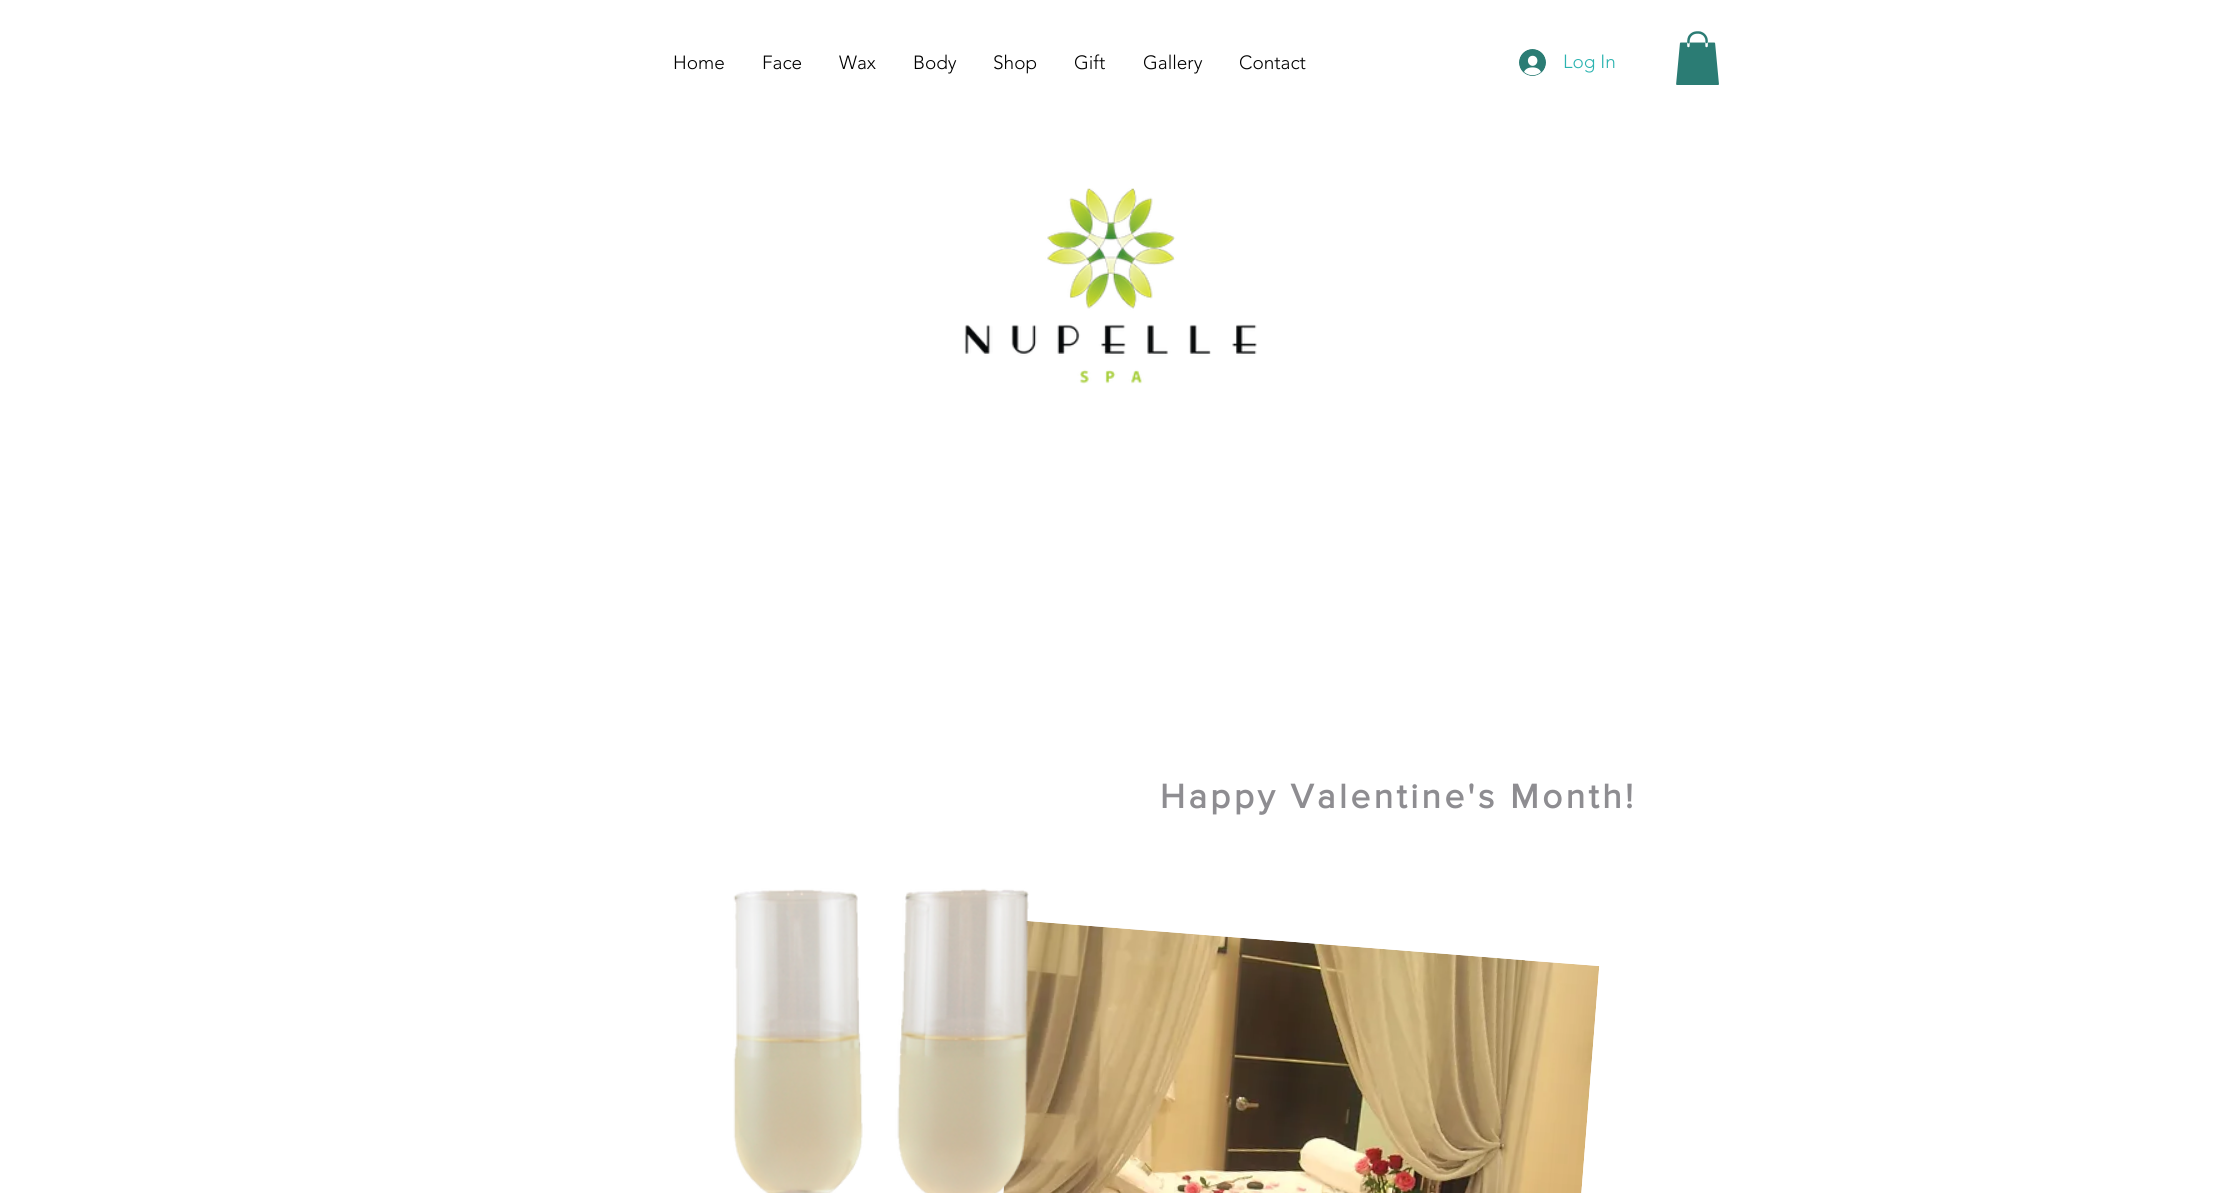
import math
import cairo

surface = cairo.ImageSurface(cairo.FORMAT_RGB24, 2226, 1193)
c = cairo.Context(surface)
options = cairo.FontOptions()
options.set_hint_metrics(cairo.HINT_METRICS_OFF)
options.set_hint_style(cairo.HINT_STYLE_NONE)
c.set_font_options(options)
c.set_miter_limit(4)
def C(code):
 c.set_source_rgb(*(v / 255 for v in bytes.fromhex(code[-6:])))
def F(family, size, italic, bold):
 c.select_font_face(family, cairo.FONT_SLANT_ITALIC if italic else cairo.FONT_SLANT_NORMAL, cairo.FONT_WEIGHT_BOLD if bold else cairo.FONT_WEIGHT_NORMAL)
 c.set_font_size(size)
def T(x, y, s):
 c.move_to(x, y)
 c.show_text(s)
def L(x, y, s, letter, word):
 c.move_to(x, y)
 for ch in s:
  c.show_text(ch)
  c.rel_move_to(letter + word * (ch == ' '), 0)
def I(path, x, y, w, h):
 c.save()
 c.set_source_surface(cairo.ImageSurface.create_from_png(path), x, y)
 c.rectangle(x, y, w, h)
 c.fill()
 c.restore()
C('ffffff')
c.paint()
F('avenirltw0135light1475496 Light',19,0,0)
C('000000')
T(673,69,'Home')
T(762,69,'Face')
T(839,69,'Wax')
T(913,69,'Body')
T(993,69,'Shop')
T(1074,69,'Gift')
T(1143,69,'Gallery')
T(1239,69,'Contact')
I('1.png',1519,49,27,27)
C('2bb3b0')
T(1563,68,'Log In')
I('2.png',1676,31,43,54)
I('3.png',964,188,293,196)
F('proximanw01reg',35,0,1)
C('8e8d91')
L(1160,808,'Happy Valentine\'s Month!',3.5,0)
I('5.png',1003,921,597,272)
I('4.png',733,888,296,305)
surface.write_to_png('o.png')
